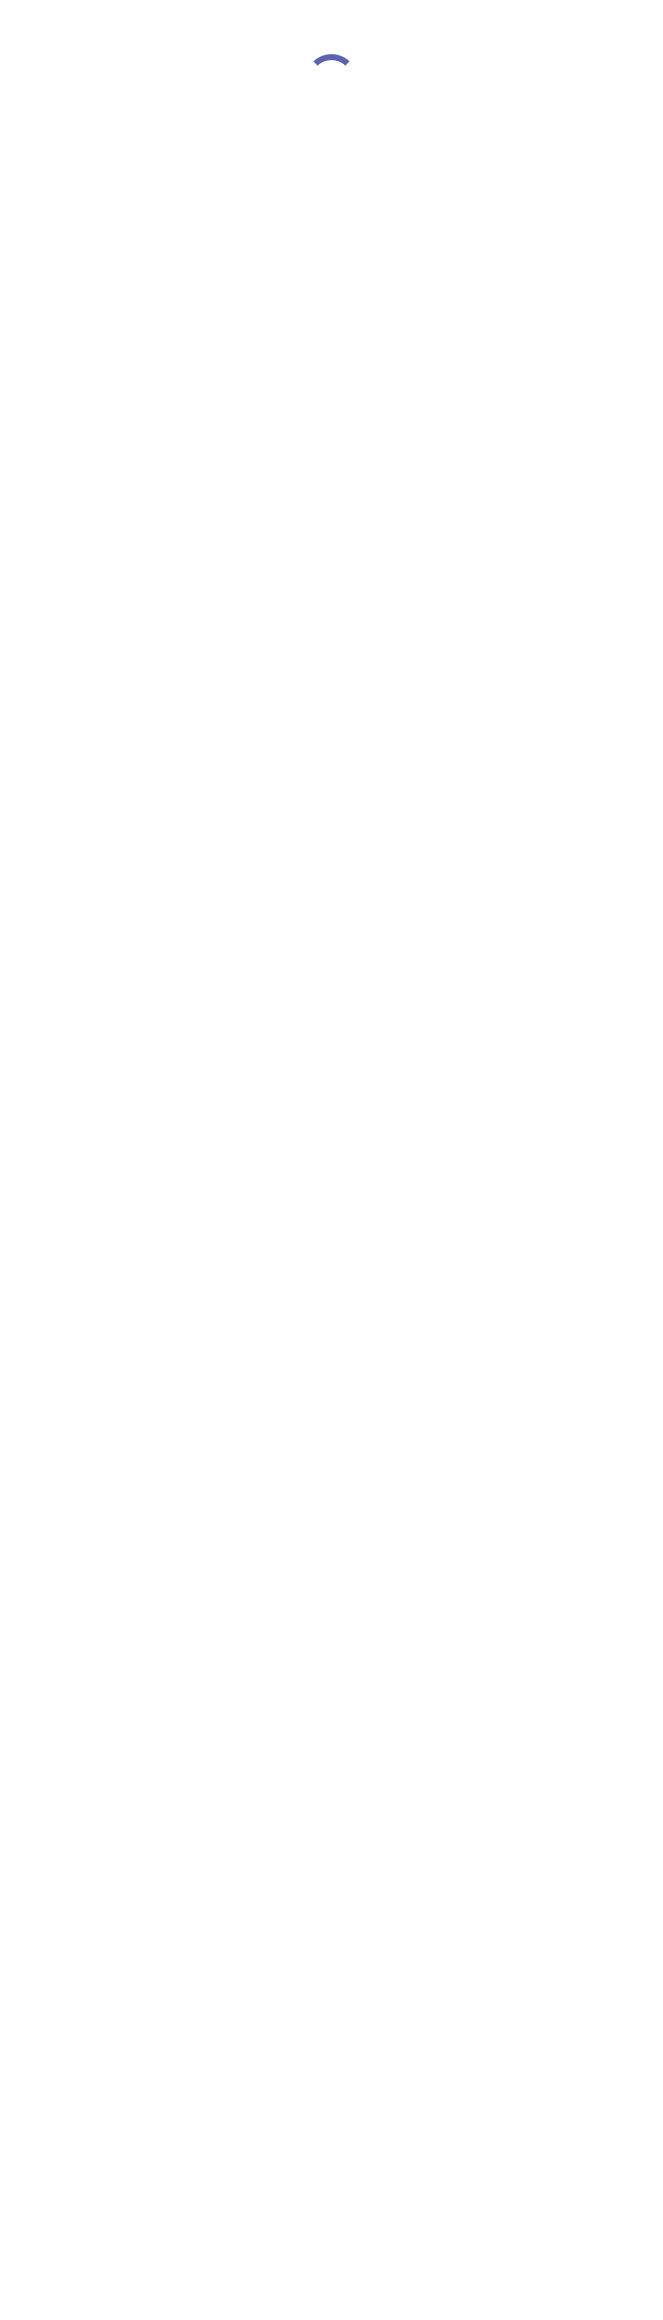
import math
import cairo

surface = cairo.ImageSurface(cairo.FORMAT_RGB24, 663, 2320)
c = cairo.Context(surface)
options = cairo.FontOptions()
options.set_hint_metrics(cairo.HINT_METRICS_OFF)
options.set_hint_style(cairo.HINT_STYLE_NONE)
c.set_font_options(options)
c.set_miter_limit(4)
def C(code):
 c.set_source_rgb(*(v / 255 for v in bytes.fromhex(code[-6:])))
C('ffffff')
c.paint()
c.new_path()
c.move_to(315.5,63.5)
c.curve_to(324.5,55,338.5,55,347.5,63.5)
c.move_to(315.5,63.5)
c.curve_to(324.5,55,338.5,55,347.5,63.5)
c.move_to(315.5,63.5)
c.curve_to(324.5,55,338.5,55,347.5,63.5)
c.move_to(315.5,63.5)
c.curve_to(324.5,55,338.5,55,347.5,63.5)
C('5c62ab')
c.set_line_width(6)
c.stroke()
surface.write_to_png('o.png')
